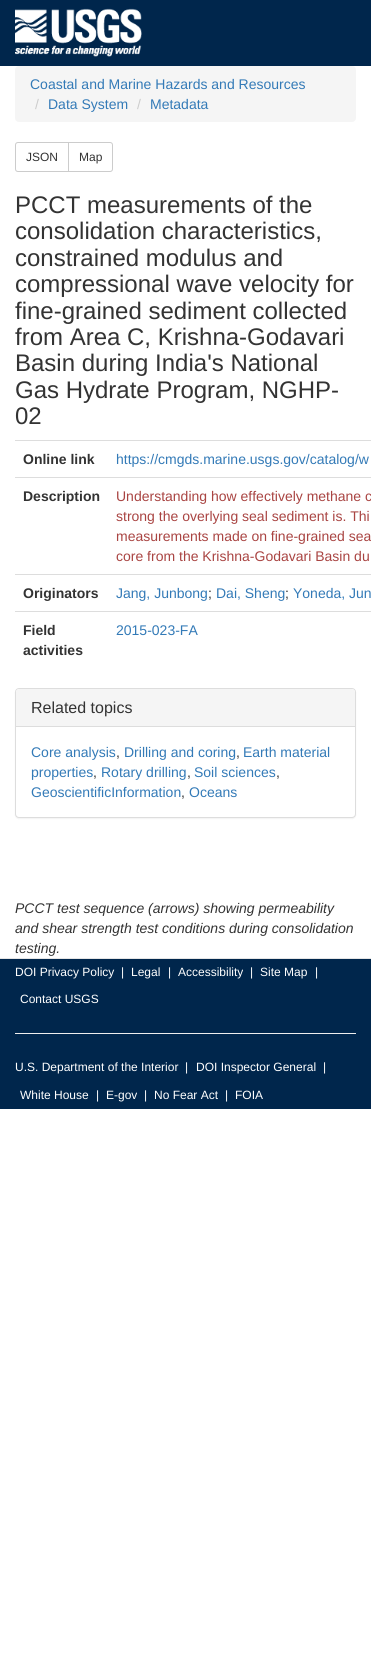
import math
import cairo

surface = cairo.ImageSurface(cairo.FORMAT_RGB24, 371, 1672)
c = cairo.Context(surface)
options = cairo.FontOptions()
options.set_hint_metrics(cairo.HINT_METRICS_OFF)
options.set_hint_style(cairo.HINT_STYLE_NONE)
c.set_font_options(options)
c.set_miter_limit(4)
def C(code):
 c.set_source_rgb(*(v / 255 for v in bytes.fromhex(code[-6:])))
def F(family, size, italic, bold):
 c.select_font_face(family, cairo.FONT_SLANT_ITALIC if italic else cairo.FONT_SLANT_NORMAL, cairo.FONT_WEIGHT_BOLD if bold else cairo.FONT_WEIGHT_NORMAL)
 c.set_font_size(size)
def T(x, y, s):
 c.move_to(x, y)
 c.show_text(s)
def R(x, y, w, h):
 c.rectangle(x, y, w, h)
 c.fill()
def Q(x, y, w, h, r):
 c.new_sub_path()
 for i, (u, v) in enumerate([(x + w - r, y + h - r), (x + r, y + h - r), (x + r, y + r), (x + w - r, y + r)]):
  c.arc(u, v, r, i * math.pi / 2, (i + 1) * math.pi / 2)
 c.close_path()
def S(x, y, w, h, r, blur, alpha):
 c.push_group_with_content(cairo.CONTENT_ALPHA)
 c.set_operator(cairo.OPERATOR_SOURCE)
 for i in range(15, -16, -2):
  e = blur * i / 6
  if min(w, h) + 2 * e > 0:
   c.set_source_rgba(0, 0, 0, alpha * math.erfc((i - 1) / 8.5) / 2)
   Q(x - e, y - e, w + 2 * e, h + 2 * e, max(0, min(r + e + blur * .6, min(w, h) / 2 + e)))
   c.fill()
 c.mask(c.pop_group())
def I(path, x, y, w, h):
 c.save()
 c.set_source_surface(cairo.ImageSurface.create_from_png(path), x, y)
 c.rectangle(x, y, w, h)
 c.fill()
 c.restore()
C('ffffff')
c.paint()
C('00264c')
R(0,0,371,66)
I('1.png',15,8,127,49)
C('f5f5f5')
Q(15,66,341,56,4)
c.fill()
F('Liberation Sans',14,0,0)
C('337ab7')
T(30,89,'Coastal and Marine Hazards and Resources')
C('cccccc')
T(35,109,'/')
C('337ab7')
T(48,109,'Data System')
C('cccccc')
T(137,109,'/')
C('337ab7')
T(150,109,'Metadata')
c.new_path()
c.move_to(18,142.5)
c.line_to(68.5,142.5)
c.line_to(68.5,171.5)
c.line_to(18,171.5)
c.curve_to(16.5,171.5,15.5,170.5,15.5,169)
c.line_to(15.5,145)
c.curve_to(15.5,143.5,16.5,142.5,18,142.5)
c.close_path()
C('cccccc')
c.set_line_width(1)
c.stroke()
F('Liberation Sans',12,0,0)
C('333333')
T(26,161,'JSON')
C('ffffff')
c.new_path()
c.move_to(68.5,142.5)
c.line_to(110,142.5)
c.curve_to(111.5,142.5,112.5,143.5,112.5,145)
c.line_to(112.5,169)
c.curve_to(112.5,170.5,111.5,171.5,110,171.5)
c.line_to(68.5,171.5)
c.close_path()
c.fill_preserve()
C('cccccc')
c.stroke()
C('333333')
T(79,161,'Map')
F('Liberation Sans',24,0,0)
T(15,213,'PCCT measurements of the')
T(15,239,'consolidation characteristics,')
T(15,266,'constrained modulus and')
T(15,292,'compressional wave velocity for')
T(15,319,'fine-grained sediment collected')
T(15,345,'from Area C, Krishna-Godavari')
T(15,371,'Basin during India\'s National')
T(15,398,'Gas Hydrate Program, NGHP-')
T(15,424,'02')
F('Liberation Sans',14,0,1)
T(23,464,'Online link')
C('dddddd')
R(15,440,356,1)
F('Liberation Sans',14,0,0)
C('337ab7')
T(116,464,'https://cmgds.marine.usgs.gov/catalog/w')
F('Liberation Sans',14,0,1)
C('333333')
T(23,501,'Description')
C('dddddd')
R(15,477,356,1)
F('Liberation Sans',14,0,0)
C('a94442')
T(116,501,'Understanding how effectively methane c')
T(116,521,'strong the overlying seal sediment is. Thi')
T(116,541,'measurements made on fine-grained sea')
T(116,561,'core from the Krishna-Godavari Basin du')
F('Liberation Sans',14,0,1)
C('333333')
T(23,598,'Originators')
C('dddddd')
R(15,574,356,1)
F('Liberation Sans',14,0,0)
C('337ab7')
T(116,598,'Jang, Junbong')
C('333333')
T(208,598,';')
C('337ab7')
T(216,598,'Dai, Sheng')
C('333333')
T(285,598,';')
C('337ab7')
T(293,598,'Yoneda, Jun')
F('Liberation Sans',14,0,1)
C('333333')
T(23,635,'Field')
T(23,655,'activities')
C('dddddd')
R(15,611,356,1)
F('Liberation Sans',14,0,0)
C('337ab7')
T(116,635,'2015-023-FA')
C('000000')
S(15,689,341,130,4,.5,.05)
C('ffffff')
Q(15.5,688.5,340,129,3.5)
c.fill_preserve()
C('dddddd')
c.stroke()
C('f5f5f5')
c.new_path()
c.move_to(19,689)
c.line_to(352,689)
c.curve_to(353.5,689,355,690.5,355,692)
c.line_to(355,727)
c.line_to(16,727)
c.line_to(16,692)
c.curve_to(16,690.5,17.5,689,19,689)
c.close_path()
c.fill()
C('dddddd')
R(16,726,339,1)
F('Liberation Sans',16,0,0)
C('333333')
T(31,713,'Related topics')
F('Liberation Sans',14,0,0)
C('337ab7')
T(31,757,'Core analysis')
C('333333')
T(116,757,',')
C('337ab7')
T(124,757,'Drilling and coring')
C('333333')
T(236,757,',')
C('337ab7')
T(243,757,'Earth material')
T(31,777,'properties')
C('333333')
T(93,777,',')
C('337ab7')
T(101,777,'Rotary drilling')
C('333333')
T(187,777,',')
C('337ab7')
T(194,777,'Soil sciences')
C('333333')
T(276,777,',')
C('337ab7')
T(31,797,'GeoscientificInformation')
C('333333')
T(181,797,',')
C('337ab7')
T(189,797,'Oceans')
F('Liberation Sans',14,1,0)
C('333333')
T(15,913,'PCCT test sequence (arrows) showing permeability')
T(15,933,'and shear strength test conditions during consolidation')
T(15,953,'testing.')
C('00264c')
R(0,959,371,150)
C('e5e5e5')
R(0,958,371,1)
F('Liberation Sans',12,0,0)
C('ffffff')
T(15,976,'DOI Privacy Policy')
T(121,976,'|')
T(131,976,'Legal')
T(168,976,'|')
T(178,976,'Accessibility')
T(250,976,'|')
T(260,976,'Site Map')
T(315,976,'|')
T(20,1003,'Contact USGS')
C('eeeeee')
R(15,1033,341,1)
C('ffffff')
T(15,1071,'U.S. Department of the Interior')
T(185,1071,'|')
T(196,1071,'DOI Inspector General')
T(323,1071,'|')
T(20,1099,'White House')
T(96,1099,'|')
T(106,1099,'E-gov')
T(144,1099,'|')
T(154,1099,'No Fear Act')
T(225,1099,'|')
T(235,1099,'FOIA')
surface.write_to_png('o.png')
